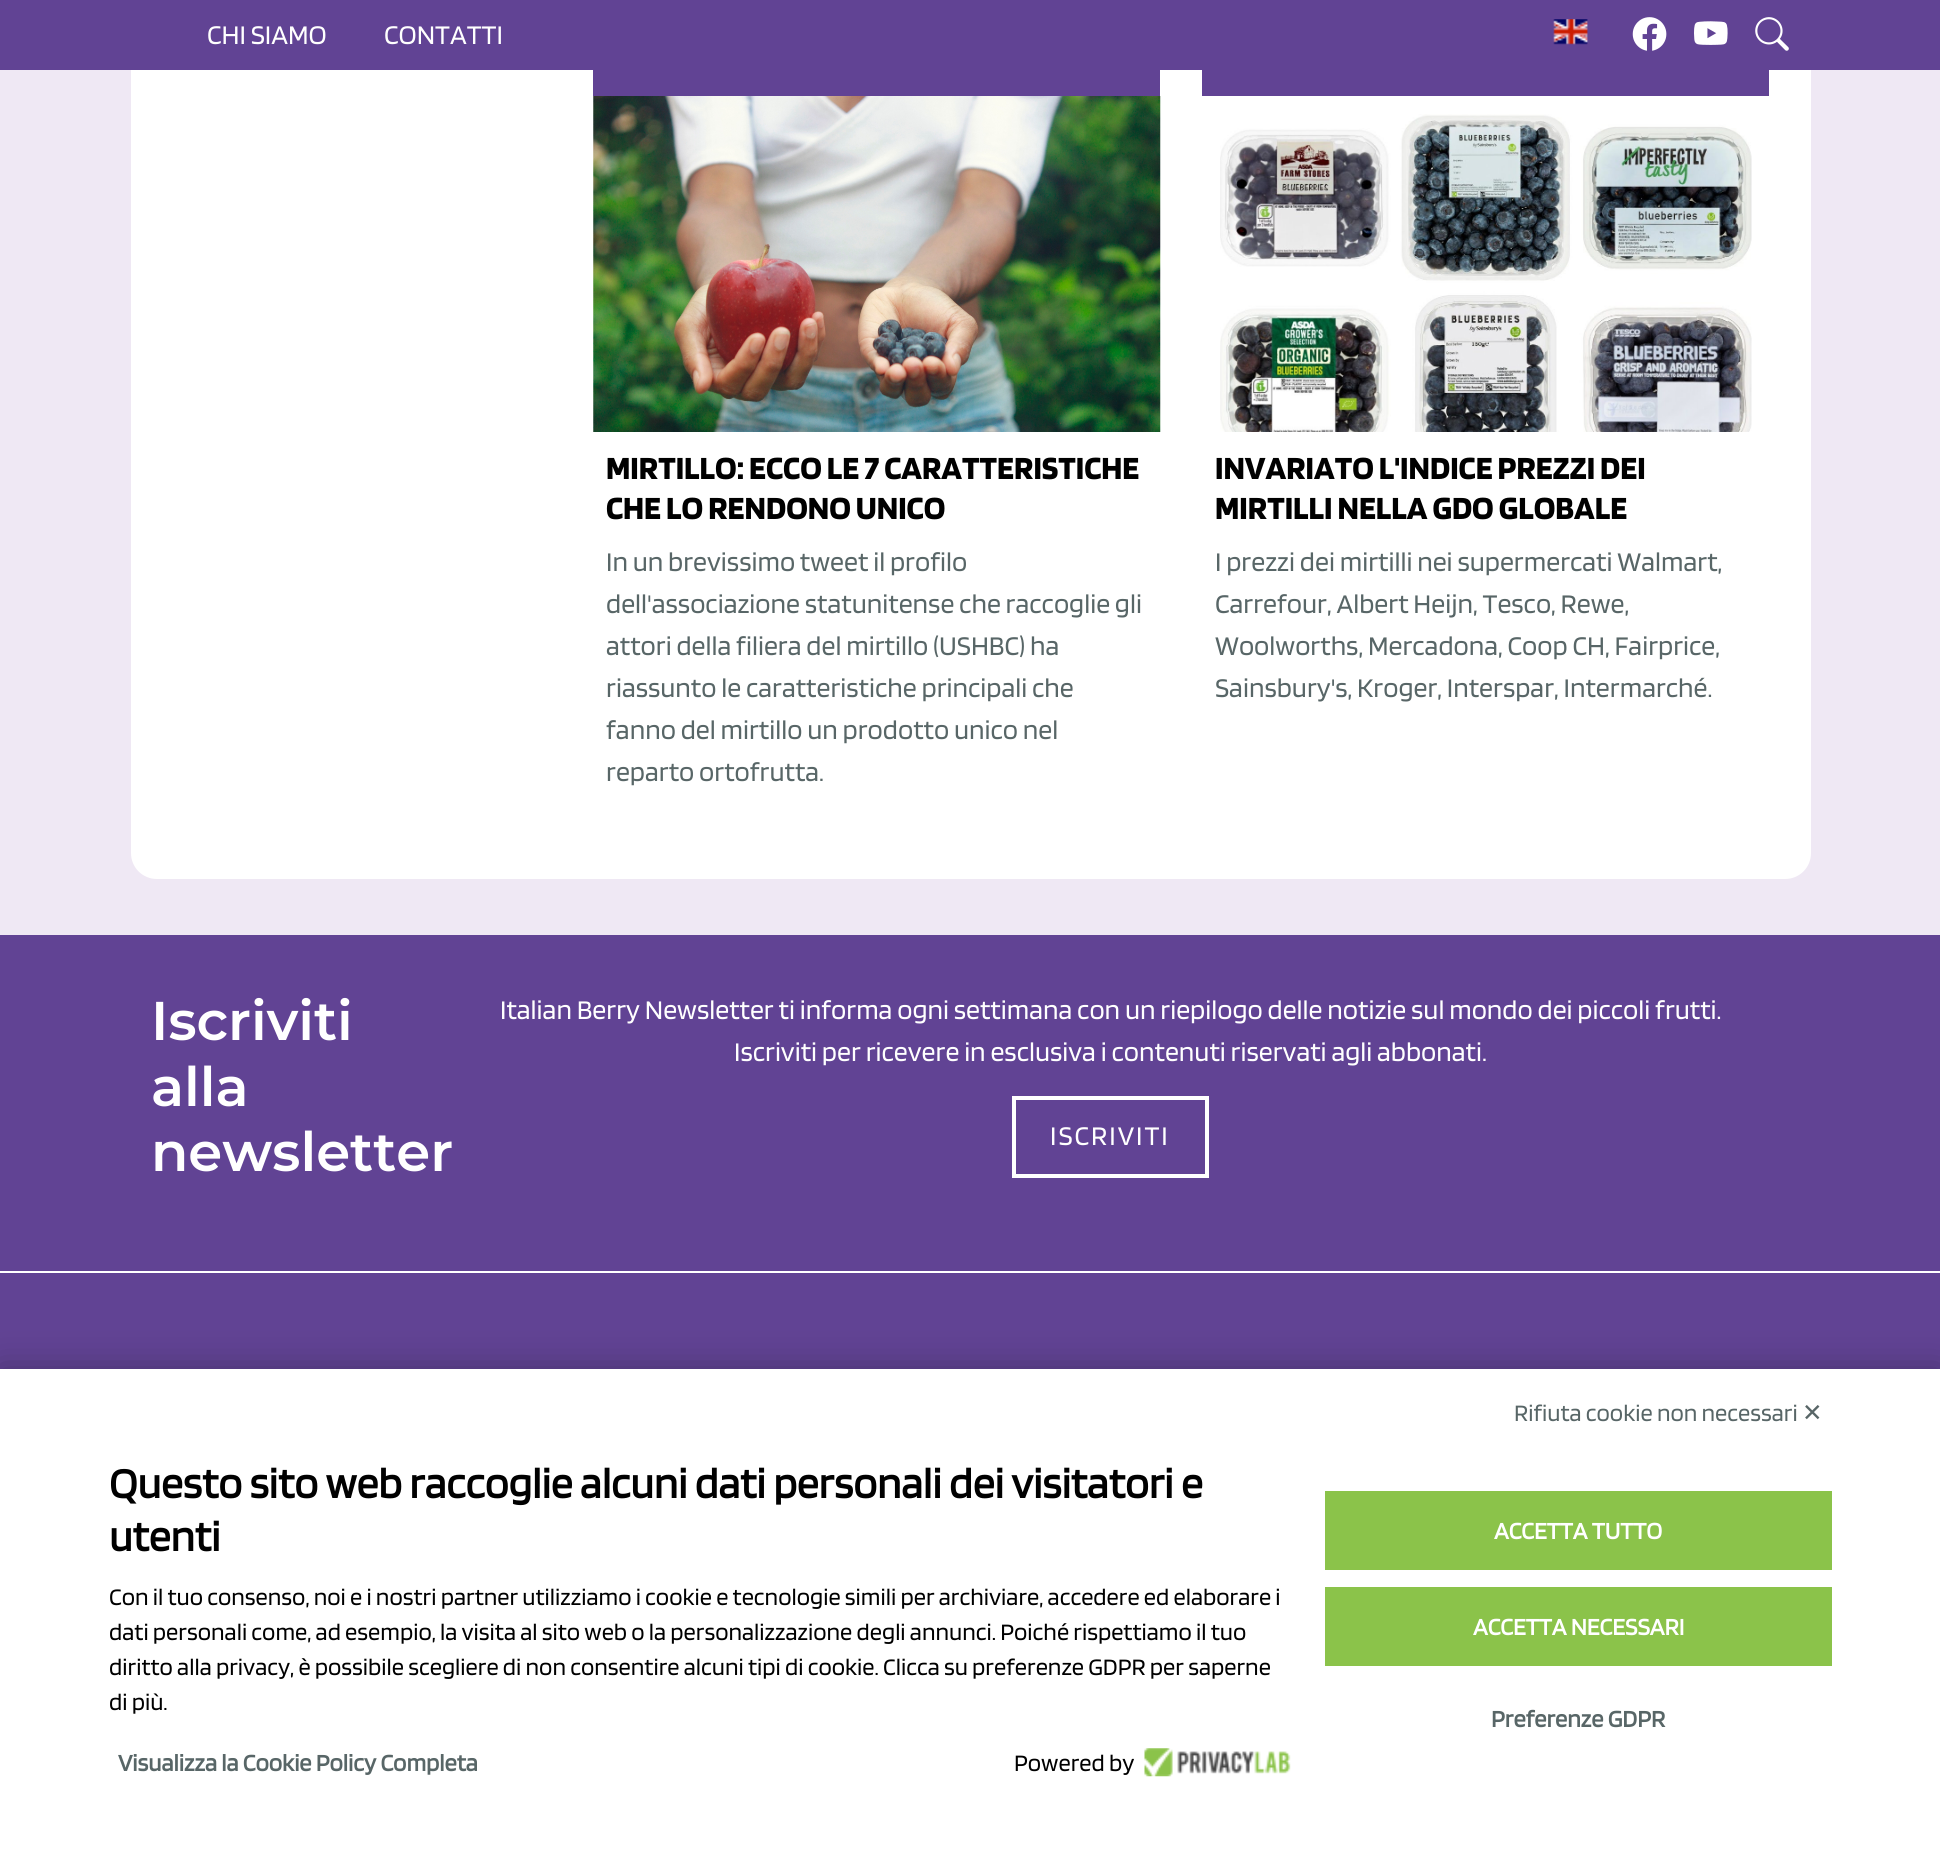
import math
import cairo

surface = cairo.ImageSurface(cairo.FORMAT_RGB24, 1940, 1862)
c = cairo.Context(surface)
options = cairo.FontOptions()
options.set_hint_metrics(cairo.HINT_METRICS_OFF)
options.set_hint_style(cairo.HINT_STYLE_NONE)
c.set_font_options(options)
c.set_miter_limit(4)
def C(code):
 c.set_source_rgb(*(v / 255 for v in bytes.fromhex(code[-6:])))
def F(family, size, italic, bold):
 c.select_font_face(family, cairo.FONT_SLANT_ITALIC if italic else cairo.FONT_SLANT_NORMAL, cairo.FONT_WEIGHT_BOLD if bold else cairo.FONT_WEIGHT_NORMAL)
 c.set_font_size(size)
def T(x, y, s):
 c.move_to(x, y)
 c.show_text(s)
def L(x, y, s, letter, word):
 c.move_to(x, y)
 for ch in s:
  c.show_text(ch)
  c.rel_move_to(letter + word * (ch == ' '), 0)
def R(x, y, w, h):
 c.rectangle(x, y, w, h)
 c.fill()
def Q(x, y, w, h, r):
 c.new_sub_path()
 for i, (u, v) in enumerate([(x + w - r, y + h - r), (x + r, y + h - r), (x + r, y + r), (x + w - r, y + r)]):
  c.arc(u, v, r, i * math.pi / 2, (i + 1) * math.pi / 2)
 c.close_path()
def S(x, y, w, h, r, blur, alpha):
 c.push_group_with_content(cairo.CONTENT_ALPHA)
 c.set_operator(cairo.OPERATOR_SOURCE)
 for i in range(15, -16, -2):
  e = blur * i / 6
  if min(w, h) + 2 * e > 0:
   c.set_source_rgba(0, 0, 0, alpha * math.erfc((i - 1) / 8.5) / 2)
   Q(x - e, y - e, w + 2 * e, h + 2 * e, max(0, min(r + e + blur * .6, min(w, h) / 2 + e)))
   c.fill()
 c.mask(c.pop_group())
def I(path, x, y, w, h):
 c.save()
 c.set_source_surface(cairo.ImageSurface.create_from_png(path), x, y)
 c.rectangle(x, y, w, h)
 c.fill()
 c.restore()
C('efe8f4')
c.paint()
C('ffffff')
c.new_path()
c.move_to(131,-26)
c.line_to(1811,-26)
c.line_to(1811,853)
c.curve_to(1811,867.5,1799.5,879,1785,879)
c.line_to(157,879)
c.curve_to(142.5,879,131,867.5,131,853)
c.close_path()
c.fill()
C('614394')
R(0,0,1940,70)
F('Blinker',28,0,0)
C('ffffff')
T(207,44,'CHI SIAMO')
T(384,44,'CONTATTI')
I('1.png',1553,19,35,26)
I('2.png',1632,17,35,34)
I('3.png',1694,21,34,24)
I('4.png',1755,17,34,34)
C('614394')
R(593,70,567,26)
I('5.png',593,96,568,336)
F('Blinker',33.6,0,1)
C('000000')
T(606,479,'MIRTILLO: ECCO LE 7 CARATTERISTICHE')
T(606,519,'CHE LO RENDONO UNICO')
F('Blinker',28,0,0)
C('586667')
T(606,571,'In un brevissimo tweet il profilo')
T(606,613,'dell\'associazione statunitense che raccoglie gli')
T(606,655,'attori della filiera del mirtillo (USHBC) ha')
T(606,697,'riassunto le caratteristiche principali che')
T(606,739,'fanno del mirtillo un prodotto unico nel')
T(606,781,'reparto ortofrutta.')
C('614394')
R(1202,70,567,26)
I('6.png',1220,114,532,318)
F('Blinker',33.6,0,1)
C('000000')
T(1215,479,'INVARIATO L\'INDICE PREZZI DEI')
T(1215,519,'MIRTILLI NELLA GDO GLOBALE')
F('Blinker',28,0,0)
C('586667')
T(1215,571,'I prezzi dei mirtilli nei supermercati Walmart,')
T(1215,613,'Carrefour, Albert Heijn, Tesco, Rewe,')
T(1215,655,'Woolworths, Mercadona, Coop CH, Fairprice,')
T(1215,697,'Sainsbury\'s, Kroger, Interspar, Intermarché.')
C('614394')
R(0,935,1940,336)
F('Montserrat SemiBold',54.5,0,0)
C('ffffff')
T(151,1040,'Iscriviti')
T(151,1106,'alla')
T(151,1171,'newsletter')
F('Blinker',28,0,0)
T(500,1019,'Italian Berry Newsletter ti informa ogni settimana con un riepilogo delle notizie sul mondo dei piccoli frutti.')
T(734,1061,'Iscriviti per ricevere in esclusiva i contenuti riservati agli abbonati.')
c.rectangle(1014,1098,193,78)
c.set_line_width(4)
c.stroke()
L(1050,1145,'ISCRIVITI',2,0)
C('614394')
R(0,1273,1940,96)
C('ffffff')
R(0,1271,1940,2)
C('000000')
S(0,1369,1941,493,0,17.5,.27)
C('ffffff')
R(0,1369,1940,493)
F('Blinker',24.5,0,0)
C('586667')
T(1514,1421,'Rifiuta cookie non necessari')
F('DejaVu Sans',24.5,0,0)
T(1802,1421,'✕')
F('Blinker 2',43.75,0,1)
C('000000')
T(109,1498,'Questo sito web raccoglie alcuni dati personali dei visitatori e')
T(109,1551,'utenti')
F('Blinker',24.5,0,0)
T(109,1605,'Con il tuo consenso, noi e i nostri partner utilizziamo i cookie e tecnologie simili per archiviare, accedere ed elaborare i')
T(109,1640,'dati personali come, ad esempio, la visita al sito web o la personalizzazione degli annunci. Poiché rispettiamo il tuo')
T(109,1675,'diritto alla privacy, è possibile scegliere di non consentire alcuni tipi di cookie. Clicca su preferenze GDPR per saperne')
T(109,1710,'di più.')
F('Blinker 2',24.5,0,1)
C('586667')
T(118,1771,'Visualizza la Cookie Policy Completa')
F('Blinker',24.5,0,0)
C('000000')
T(1014,1771,'Powered by')
I('7.png',1144,1748,147,29)
C('8bc34a')
R(1325,1491,507,79)
F('Blinker 2',24.5,0,1)
C('ffffff')
T(1494,1539,'ACCETTA TUTTO')
C('8bc34a')
R(1325,1587,507,79)
C('ffffff')
T(1473,1635,'ACCETTA NECESSARI')
C('586667')
T(1491,1727,'Preferenze GDPR')
surface.write_to_png('o.png')
